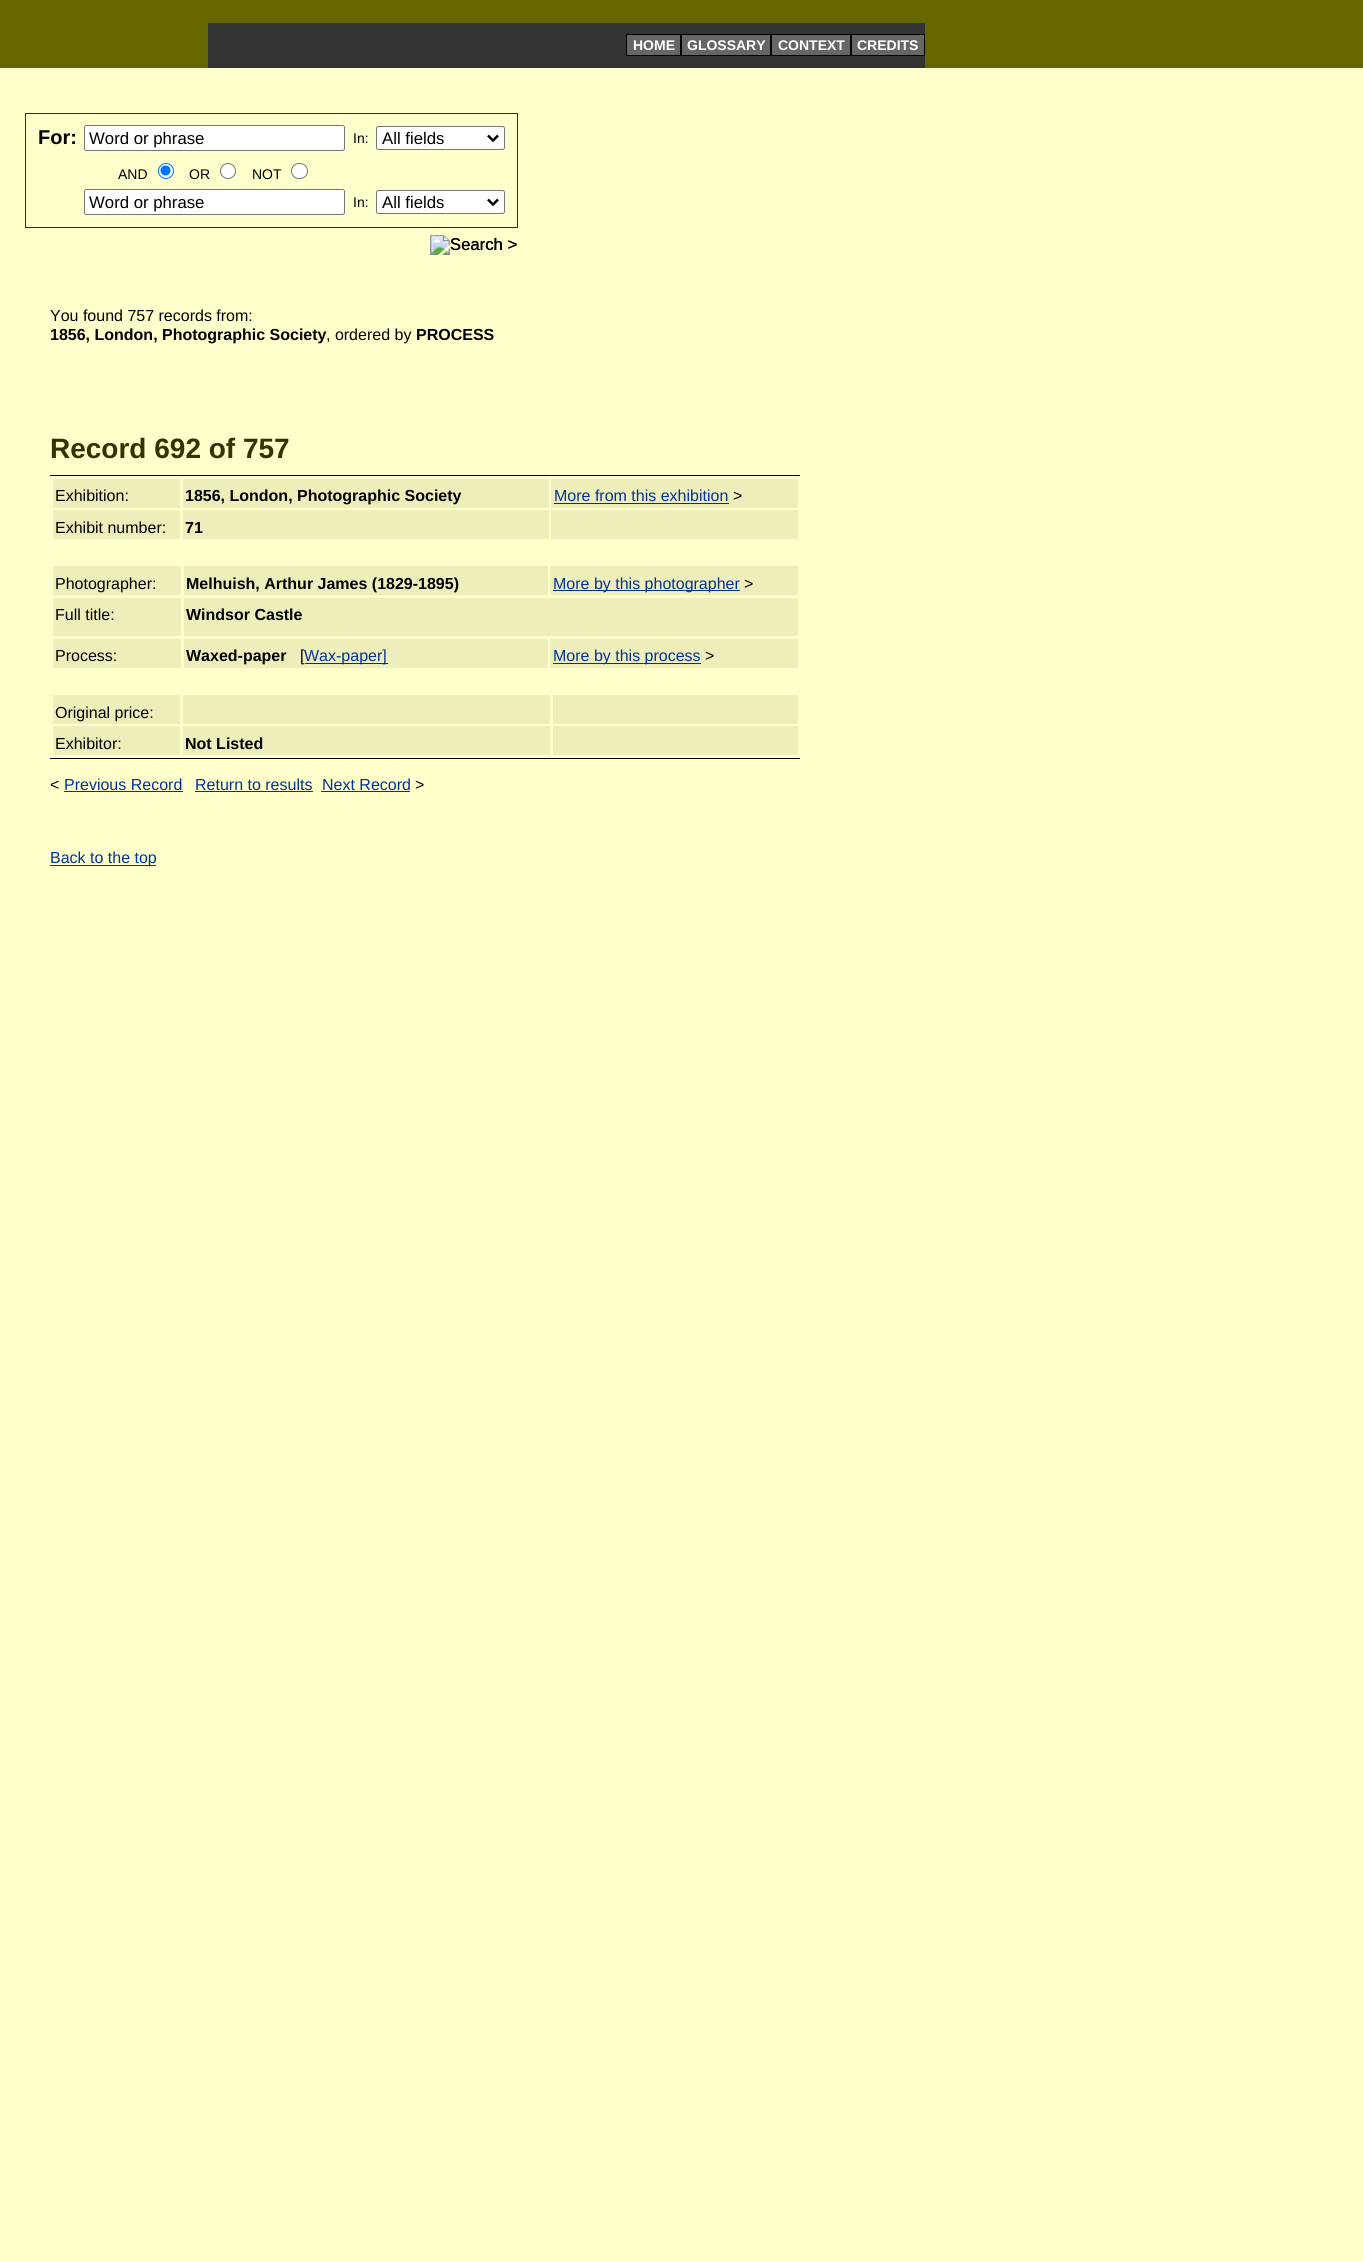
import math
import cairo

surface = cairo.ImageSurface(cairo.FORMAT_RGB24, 1363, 2261)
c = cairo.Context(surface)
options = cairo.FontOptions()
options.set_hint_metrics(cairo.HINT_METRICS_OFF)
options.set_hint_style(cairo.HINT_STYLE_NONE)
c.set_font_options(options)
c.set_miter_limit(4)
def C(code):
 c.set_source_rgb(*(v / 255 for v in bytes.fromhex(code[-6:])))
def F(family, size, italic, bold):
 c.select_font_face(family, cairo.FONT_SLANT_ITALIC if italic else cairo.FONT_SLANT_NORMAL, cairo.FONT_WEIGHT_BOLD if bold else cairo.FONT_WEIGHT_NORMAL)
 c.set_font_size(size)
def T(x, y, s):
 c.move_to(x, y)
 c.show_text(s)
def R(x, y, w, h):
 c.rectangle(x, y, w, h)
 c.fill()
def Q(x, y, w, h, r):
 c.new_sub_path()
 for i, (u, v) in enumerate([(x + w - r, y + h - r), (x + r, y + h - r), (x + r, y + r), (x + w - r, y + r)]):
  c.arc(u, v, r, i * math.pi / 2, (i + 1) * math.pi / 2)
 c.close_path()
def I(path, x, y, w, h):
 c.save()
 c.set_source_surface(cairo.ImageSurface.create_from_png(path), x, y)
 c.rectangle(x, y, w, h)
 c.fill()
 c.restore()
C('ffffcc')
c.paint()
C('666600')
R(0,0,1363,68)
C('333333')
R(208,23,717,45)
C('666666')
c.rectangle(626.5,34.5,54,21)
c.fill_preserve()
C('000000')
c.set_line_width(1)
c.stroke()
F('Liberation Sans',14,0,1)
C('ffffff')
T(633,50,'HOME')
C('666666')
c.rectangle(681.5,34.5,89,21)
c.fill_preserve()
C('000000')
c.stroke()
C('ffffff')
T(687,50,'GLOSSARY')
C('666666')
c.rectangle(771.5,34.5,79,21)
c.fill_preserve()
C('000000')
c.stroke()
C('ffffff')
T(778,50,'CONTEXT')
C('666666')
c.rectangle(851.5,34.5,73,21)
c.fill_preserve()
C('000000')
c.stroke()
C('ffffff')
T(857,50,'CREDITS')
c.rectangle(25.5,113.5,492,114)
C('333300')
c.stroke()
F('Liberation Sans',20,0,1)
C('000000')
T(38,144,'For:')
C('ffffff')
Q(84.5,125.5,260,25,2)
c.fill_preserve()
C('767676')
c.stroke()
F('Liberation Sans',16.75,0,0)
C('000000')
T(89,144,'Word or phrase')
F('Liberation Sans',14,0,0)
T(353,143,'In:')
C('ffffff')
Q(376.5,126.5,128,23,2)
c.fill_preserve()
C('767676')
c.stroke()
c.new_path()
c.move_to(488,135.5)
c.line_to(493,140.5)
c.line_to(498,135.5)
C('000000')
c.set_line_width(2.5)
c.stroke()
F('Liberation Sans',16.75,0,0)
T(382,144,'All fields')
F('Liberation Sans',14,0,0)
T(118,179,'AND')
C('ffffff')
c.new_path()
c.arc(166,171,7.5,0,2 * math.pi)
c.fill_preserve()
C('0075ff')
c.set_line_width(1)
c.stroke()
c.arc(165.5,170.5,5,0,2 * math.pi)
c.fill()
C('000000')
T(189,179,'OR')
C('ffffff')
c.new_path()
c.arc(228,171,7.5,0,2 * math.pi)
c.fill_preserve()
C('767676')
c.stroke()
C('000000')
T(252,179,'NOT')
C('ffffff')
Q(291.5,163.5,16,15,7.5)
c.fill_preserve()
C('767676')
c.stroke()
C('ffffff')
Q(84.5,189.5,260,25,2)
c.fill_preserve()
C('767676')
c.stroke()
F('Liberation Sans',16.75,0,0)
C('000000')
T(89,208,'Word or phrase')
F('Liberation Sans',14,0,0)
T(353,207,'In:')
C('ffffff')
Q(376.5,190.5,128,23,2)
c.fill_preserve()
C('767676')
c.stroke()
c.new_path()
c.move_to(488,199.5)
c.line_to(493,204.5)
c.line_to(498,199.5)
C('000000')
c.set_line_width(2.5)
c.stroke()
F('Liberation Sans',16.75,0,0)
T(382,208,'All fields')
I('1.png',430,235,87,20)
T(450,250,'Search >')
F('Liberation Sans',16,0,0)
T(50,321,'You found 757 records from:')
F('Liberation Sans',16,0,1)
T(50,340,'1856, London, Photographic Society')
F('Liberation Sans',16,0,0)
T(326,340,', ordered by')
F('Liberation Sans',16,0,1)
T(416,340,'PROCESS')
F('Liberation Sans',28,0,1)
C('333300')
T(50,458,'Record 692 of 757')
C('000000')
R(50,475,750,1)
C('eeeebb')
R(53,479,127,29)
F('Liberation Sans',16,0,0)
C('000000')
T(55,501,'Exhibition:')
C('eeeebb')
R(183,479,366,29)
F('Liberation Sans',16,0,1)
C('000000')
T(185,501,'1856, London, Photographic Society')
C('eeeebb')
R(551,479,247,29)
F('Liberation Sans',16,0,0)
C('003399')
T(554,501,'More from this exhibition')
R(554,503,175,1)
C('000000')
T(733,501,'>')
C('eeeebb')
R(53,510,127,29)
C('000000')
T(55,533,'Exhibit number:')
C('eeeebb')
R(183,510,366,29)
F('Liberation Sans',16,0,1)
C('000000')
T(185,533,'71')
C('eeeebb')
R(551,510,247,29)
R(53,566,128,29)
F('Liberation Sans',16,0,0)
C('000000')
T(55,589,'Photographer:')
C('eeeebb')
R(184,566,364,29)
F('Liberation Sans',16,0,1)
C('000000')
T(186,589,'Melhuish, Arthur James (1829-1895)')
C('eeeebb')
R(550,566,248,29)
C('003399')
R(553,590,187,1)
F('Liberation Sans',16,0,0)
T(553,589,'More by this photographer')
C('000000')
T(744,589,'>')
C('eeeebb')
R(53,598,128,38)
C('000000')
T(55,620,'Full title:')
C('eeeebb')
R(184,598,614,38)
F('Liberation Sans',16,0,1)
C('000000')
T(186,620,'Windsor Castle')
C('eeeebb')
R(53,639,128,29)
F('Liberation Sans',16,0,0)
C('000000')
T(55,661,'Process:')
C('eeeebb')
R(184,639,364,29)
F('Liberation Sans',16,0,1)
C('000000')
T(186,661,'Waxed-paper')
F('Liberation Sans',16,0,0)
T(300,661,'[')
C('003399')
R(305,663,83,1)
T(304,661,'Wax-paper]')
C('eeeebb')
R(550,639,248,29)
C('003399')
R(553,663,148,1)
T(553,661,'More by this process')
C('000000')
T(705,661,'>')
R(50,758,750,1)
C('eeeebb')
R(53,695,127,29)
C('000000')
T(55,718,'Original price:')
C('eeeebb')
R(183,695,367,29)
R(553,695,245,29)
R(53,726,127,29)
C('000000')
T(55,749,'Exhibitor:')
C('eeeebb')
R(183,726,367,29)
F('Liberation Sans',16,0,1)
C('000000')
T(185,749,'Not Listed')
C('eeeebb')
R(553,726,245,29)
F('Liberation Sans',16,0,0)
C('000000')
T(50,790,'<')
C('003399')
T(64,790,'Previous Record')
R(64,791,119,1)
T(195,790,'Return to results')
R(195,791,118,1)
T(322,790,'Next Record')
R(321,791,89,1)
C('000000')
T(415,790,'>')
C('003399')
R(50,865,106,1)
T(50,863,'Back to the top')
surface.write_to_png('o.png')
